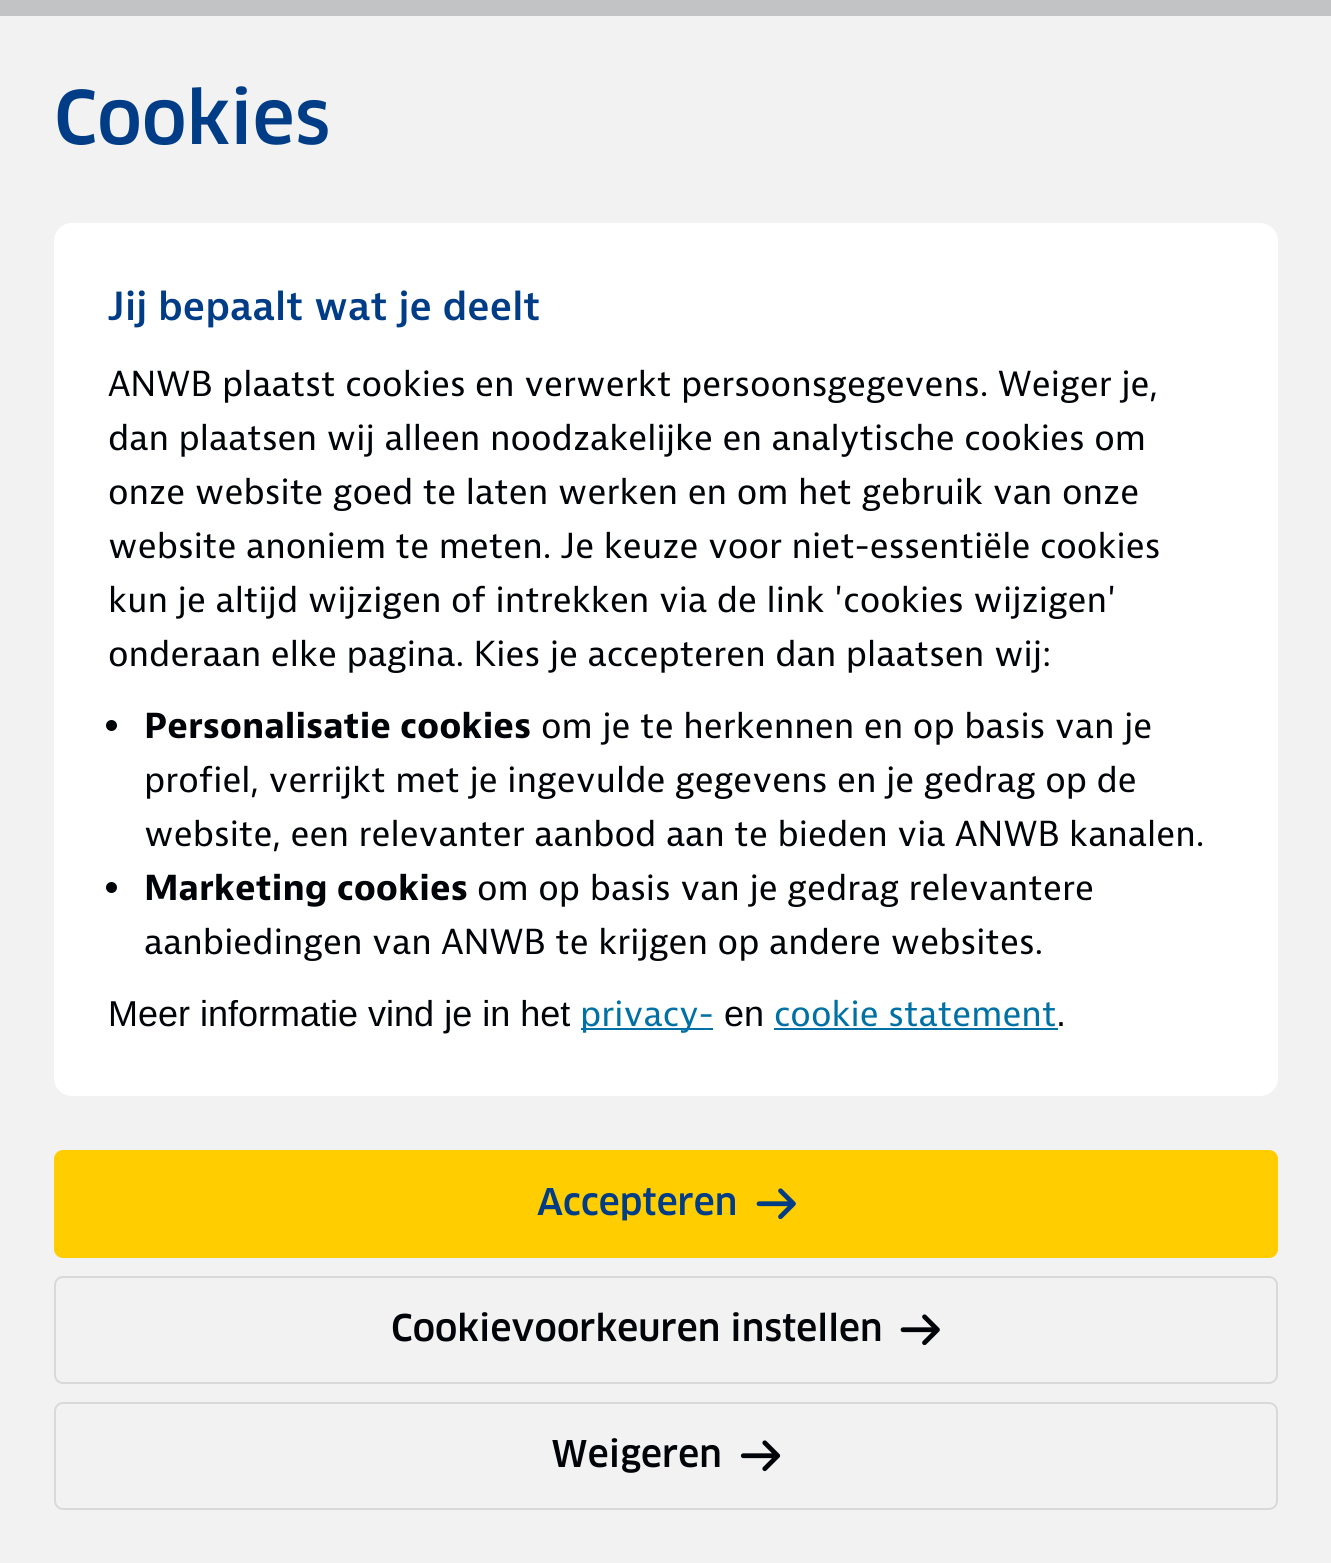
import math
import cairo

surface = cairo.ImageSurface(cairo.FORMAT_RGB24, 1331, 1563)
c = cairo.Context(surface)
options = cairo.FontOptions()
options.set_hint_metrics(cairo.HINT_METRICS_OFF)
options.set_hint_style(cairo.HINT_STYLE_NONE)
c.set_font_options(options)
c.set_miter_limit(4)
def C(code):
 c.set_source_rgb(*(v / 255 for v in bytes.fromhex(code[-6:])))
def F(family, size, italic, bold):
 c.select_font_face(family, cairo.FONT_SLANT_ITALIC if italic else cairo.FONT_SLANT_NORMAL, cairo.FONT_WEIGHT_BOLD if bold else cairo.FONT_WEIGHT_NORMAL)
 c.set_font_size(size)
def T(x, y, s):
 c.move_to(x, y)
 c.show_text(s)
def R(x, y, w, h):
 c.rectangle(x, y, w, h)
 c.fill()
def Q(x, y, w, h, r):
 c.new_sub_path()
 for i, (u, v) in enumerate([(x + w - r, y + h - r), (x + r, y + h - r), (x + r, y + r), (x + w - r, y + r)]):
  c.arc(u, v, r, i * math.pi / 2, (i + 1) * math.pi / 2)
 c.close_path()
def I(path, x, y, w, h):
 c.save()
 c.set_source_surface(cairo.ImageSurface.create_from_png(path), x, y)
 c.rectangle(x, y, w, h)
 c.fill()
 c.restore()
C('c2c3c4')
c.paint()
C('f2f2f2')
R(0,16,1331,1547)
F('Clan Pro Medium',72,0,0)
C('003d86')
T(54,144,'Cookies')
C('ffffff')
Q(54,223,1224,873,18)
c.fill()
F('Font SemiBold',40.5,0,0)
C('003d86')
T(108,320,'Jij bepaalt wat je deelt')
F('Font',36,0,0)
C('000307')
T(108,396,'ANWB plaatst cookies en verwerkt persoonsgegevens. Weiger je,')
T(108,450,'dan plaatsen wij alleen noodzakelijke en analytische cookies om')
T(108,504,'onze website goed te laten werken en om het gebruik van onze')
T(108,558,'website anoniem te meten. Je keuze voor niet-essentiële cookies')
T(108,612,'kun je altijd wijzigen of intrekken via de link \'cookies wijzigen\'')
T(108,666,'onderaan elke pagina. Kies je accepteren dan plaatsen wij:')
c.new_path()
c.arc(111.5,725.5,5.5,0,2 * math.pi)
c.fill()
F('Font',36,0,1)
T(144,738,'Personalisatie cookies')
F('Font',36,0,0)
T(541,738,'om je te herkennen en op basis van je')
T(144,792,'profiel, verrijkt met je ingevulde gegevens en je gedrag op de')
T(144,846,'website, een relevanter aanbod aan te bieden via ANWB kanalen.')
c.new_path()
c.arc(111.5,887.5,5.5,0,2 * math.pi)
c.fill()
F('Font',36,0,1)
T(144,900,'Marketing cookies')
F('Font',36,0,0)
T(477,900,'om op basis van je gedrag relevantere')
T(144,954,'aanbiedingen van ANWB te krijgen op andere websites.')
F('Liberation Sans',36,0,0)
T(108,1026,'Meer informatie vind je in het')
C('0071a4')
R(581,1028,132,2)
F('Font',36,0,0)
T(580,1026,'privacy-')
F('Liberation Sans',36,0,0)
C('000307')
T(724,1026,'en')
F('Font',36,0,0)
C('0071a4')
T(774,1026,'cookie statement')
R(774,1028,284,2)
F('Liberation Sans',36,0,0)
C('000307')
T(1056,1026,'.')
C('ffcd00')
Q(54,1150,1224,108,9)
c.fill()
F('Clan Pro Medium',36,0,0)
C('003d86')
T(537,1215,'Accepteren')
I('1.png',756,1188,40,32)
Q(55,1277,1222,106,8)
C('d9d9d9')
c.stroke()
C('000307')
T(391,1341,'Cookievoorkeuren instellen')
I('2.png',900,1314,40,32)
Q(55,1403,1222,106,8)
C('d9d9d9')
c.stroke()
C('000307')
T(551,1467,'Weigeren')
I('3.png',740,1440,41,32)
surface.write_to_png('o.png')
